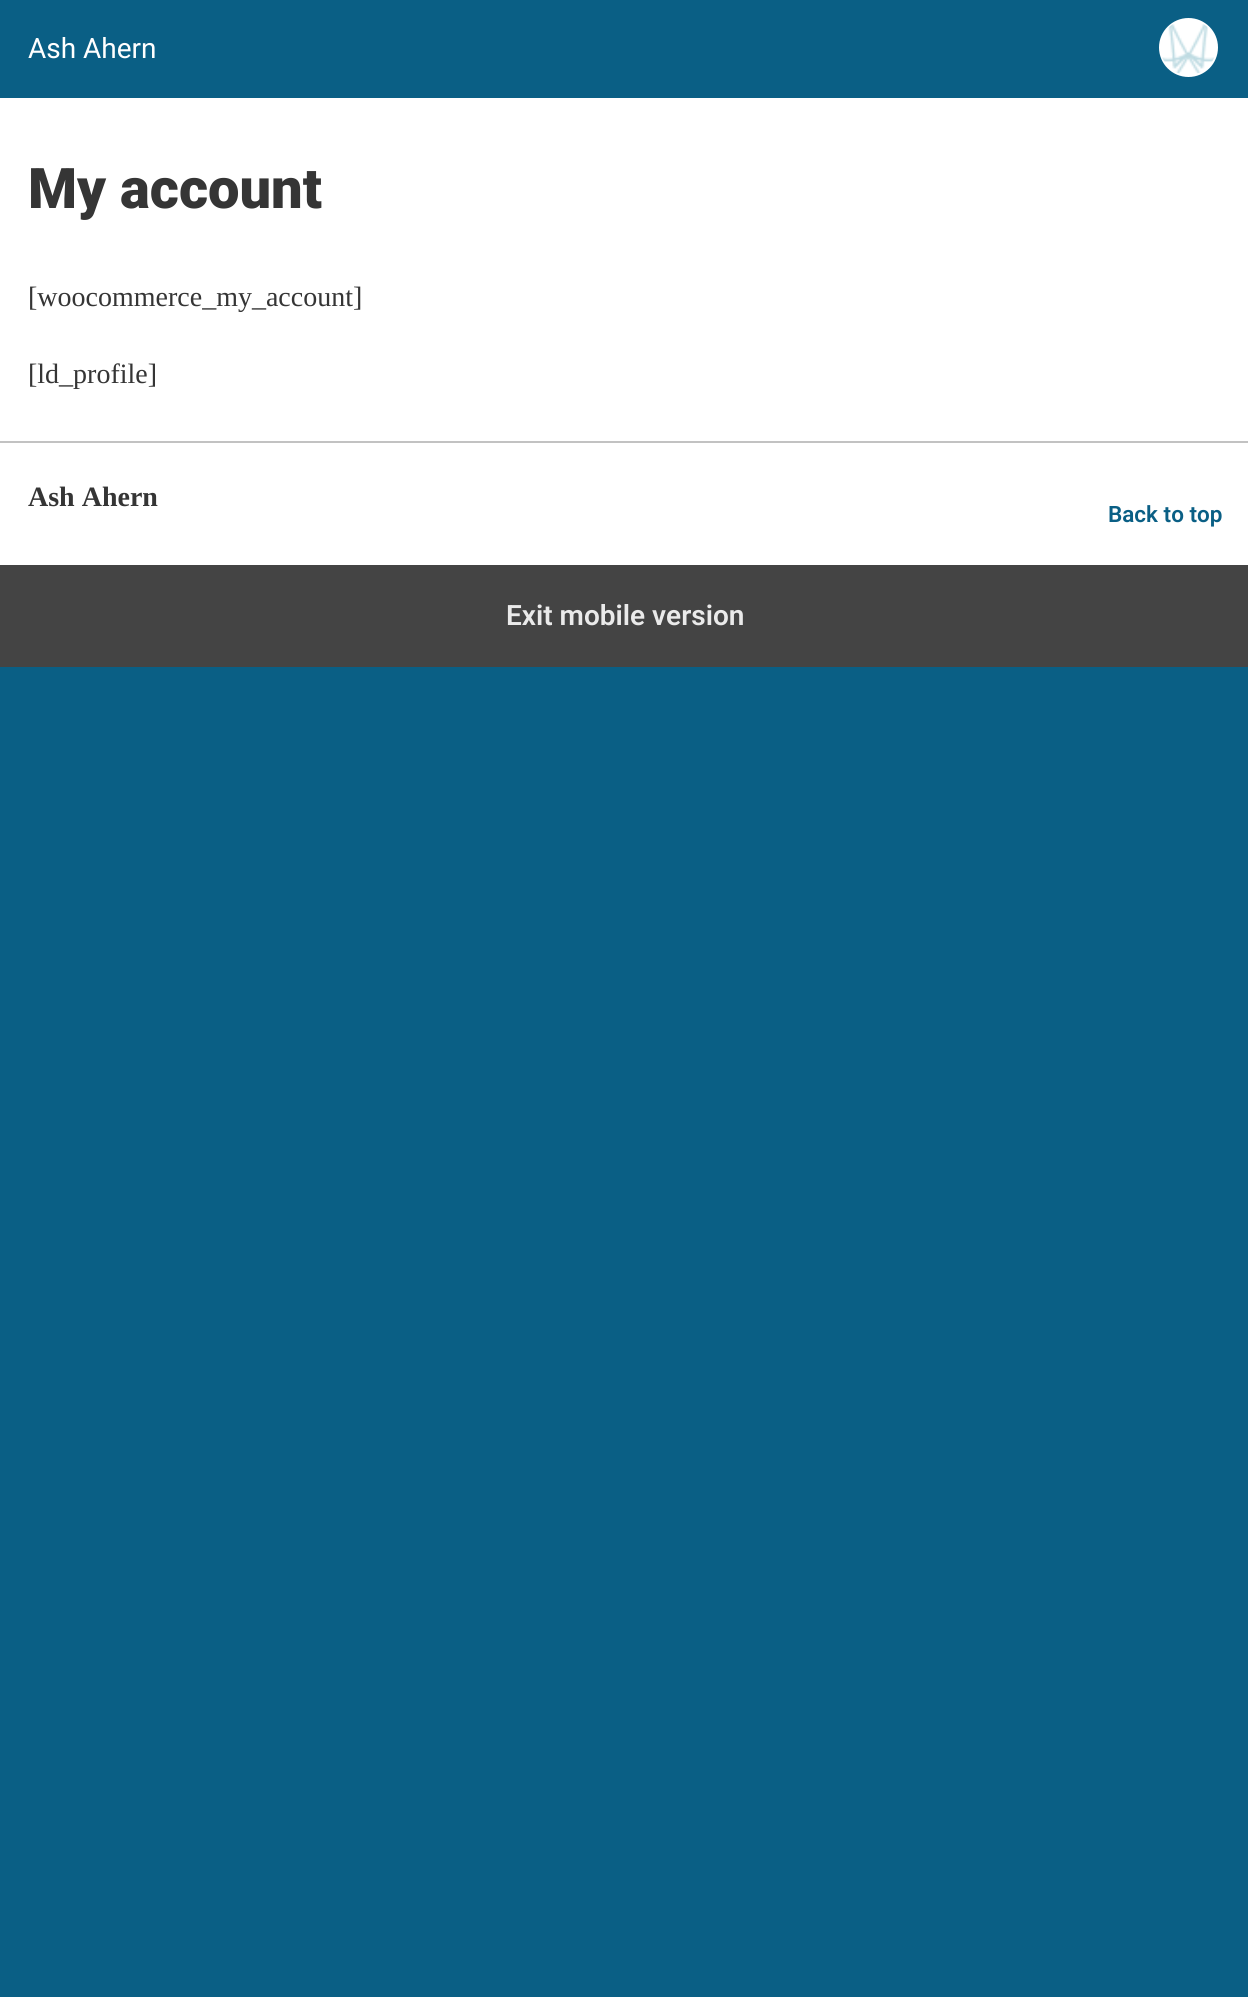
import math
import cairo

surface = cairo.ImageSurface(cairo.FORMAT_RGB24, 1248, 1997)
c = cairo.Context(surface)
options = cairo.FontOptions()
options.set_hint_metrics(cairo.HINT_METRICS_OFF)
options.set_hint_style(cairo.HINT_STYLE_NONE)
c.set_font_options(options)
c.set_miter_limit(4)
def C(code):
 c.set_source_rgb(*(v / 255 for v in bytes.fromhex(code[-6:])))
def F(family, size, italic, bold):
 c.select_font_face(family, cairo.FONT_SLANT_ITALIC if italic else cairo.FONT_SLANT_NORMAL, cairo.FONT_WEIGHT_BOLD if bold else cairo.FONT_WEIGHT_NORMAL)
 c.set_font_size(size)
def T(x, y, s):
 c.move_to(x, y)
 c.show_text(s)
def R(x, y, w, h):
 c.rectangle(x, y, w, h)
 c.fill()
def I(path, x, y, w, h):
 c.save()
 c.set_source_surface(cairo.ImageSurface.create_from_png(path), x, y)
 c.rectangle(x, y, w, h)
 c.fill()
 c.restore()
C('0a5f85')
c.paint()
C('ffffff')
R(0,98,1248,467)
F('Roboto',28,0,0)
T(28,58,'Ash Ahern')
c.new_path()
c.arc(1188.5,47.5,28.5,0,2 * math.pi)
c.fill_preserve()
c.stroke()
I('1.png',1162,24,53,50)
F('Roboto Black',56,0,0)
C('353535')
T(28,208,'My account')
F('Liberation Serif',28,0,0)
T(28,306,'[woocommerce_my_account]')
T(28,383,'[ld_profile]')
C('c2c2c2')
R(0,441,1248,2)
F('Liberation Serif',28,0,1)
C('353535')
T(28,506,'Ash Ahern')
F('Roboto SemiBold',22.5,0,0)
C('0a5f85')
T(1108,522,'Back to top')
C('444444')
R(0,565,1248,102)
F('Roboto SemiBold',28,0,0)
C('eaeaea')
T(506,625,'Exit mobile version')
surface.write_to_png('o.png')
